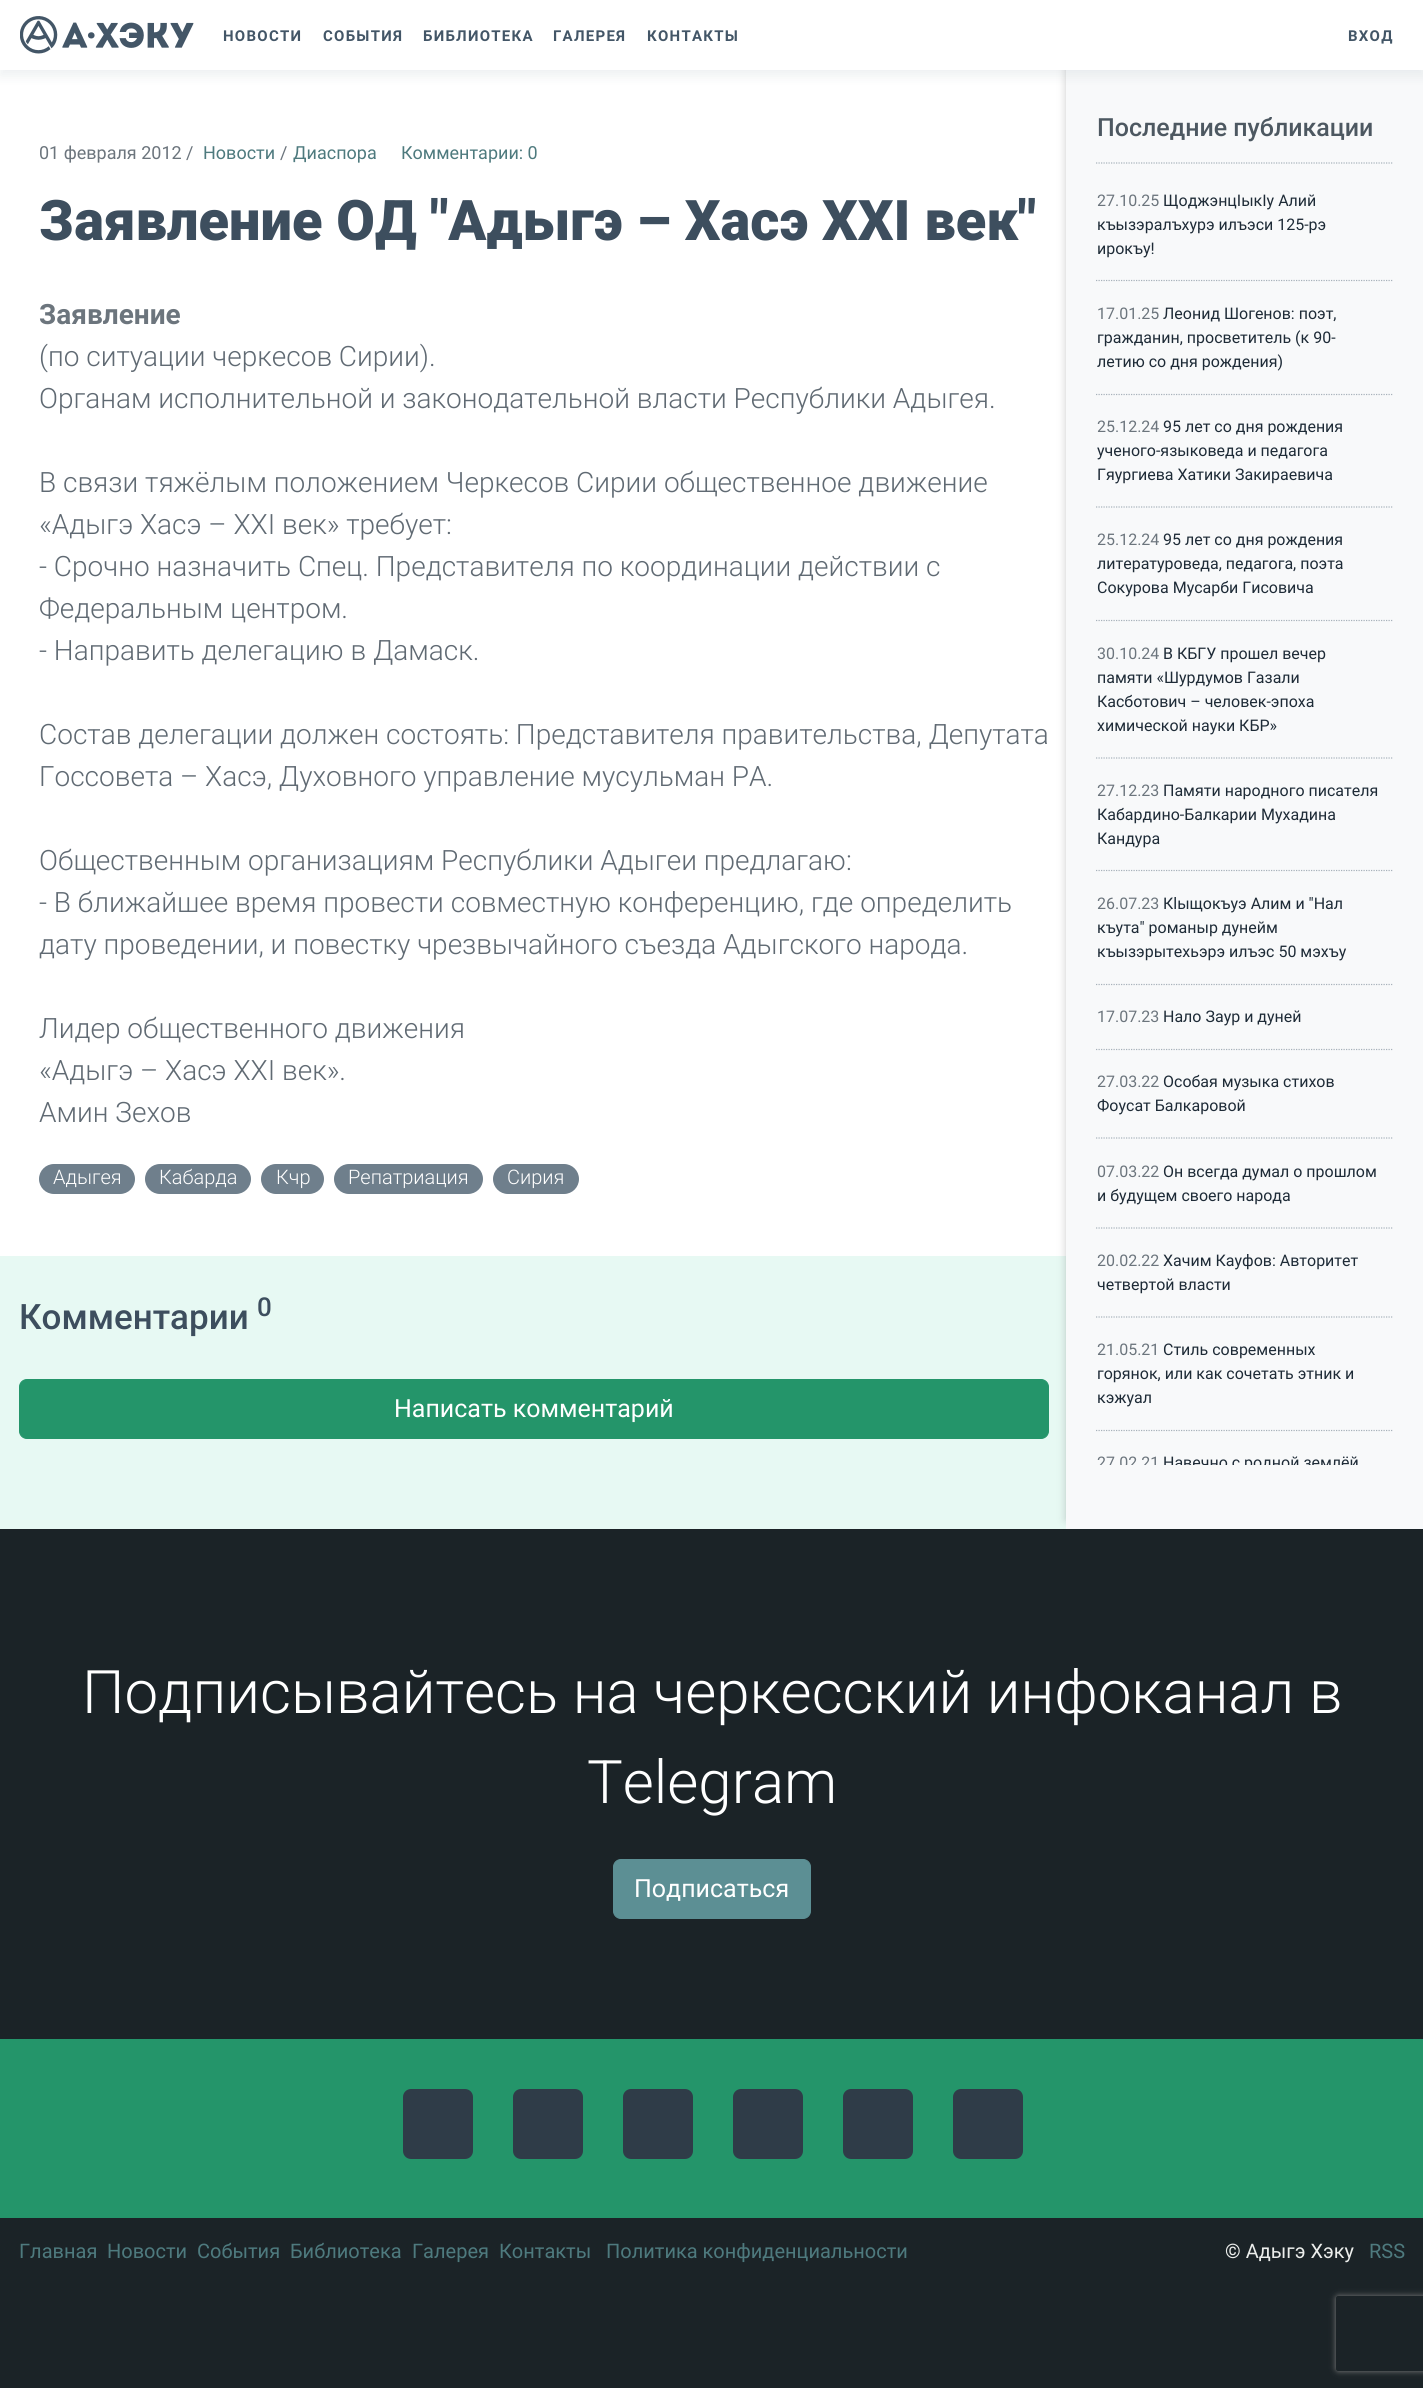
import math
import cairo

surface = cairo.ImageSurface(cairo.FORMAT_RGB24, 1423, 2388)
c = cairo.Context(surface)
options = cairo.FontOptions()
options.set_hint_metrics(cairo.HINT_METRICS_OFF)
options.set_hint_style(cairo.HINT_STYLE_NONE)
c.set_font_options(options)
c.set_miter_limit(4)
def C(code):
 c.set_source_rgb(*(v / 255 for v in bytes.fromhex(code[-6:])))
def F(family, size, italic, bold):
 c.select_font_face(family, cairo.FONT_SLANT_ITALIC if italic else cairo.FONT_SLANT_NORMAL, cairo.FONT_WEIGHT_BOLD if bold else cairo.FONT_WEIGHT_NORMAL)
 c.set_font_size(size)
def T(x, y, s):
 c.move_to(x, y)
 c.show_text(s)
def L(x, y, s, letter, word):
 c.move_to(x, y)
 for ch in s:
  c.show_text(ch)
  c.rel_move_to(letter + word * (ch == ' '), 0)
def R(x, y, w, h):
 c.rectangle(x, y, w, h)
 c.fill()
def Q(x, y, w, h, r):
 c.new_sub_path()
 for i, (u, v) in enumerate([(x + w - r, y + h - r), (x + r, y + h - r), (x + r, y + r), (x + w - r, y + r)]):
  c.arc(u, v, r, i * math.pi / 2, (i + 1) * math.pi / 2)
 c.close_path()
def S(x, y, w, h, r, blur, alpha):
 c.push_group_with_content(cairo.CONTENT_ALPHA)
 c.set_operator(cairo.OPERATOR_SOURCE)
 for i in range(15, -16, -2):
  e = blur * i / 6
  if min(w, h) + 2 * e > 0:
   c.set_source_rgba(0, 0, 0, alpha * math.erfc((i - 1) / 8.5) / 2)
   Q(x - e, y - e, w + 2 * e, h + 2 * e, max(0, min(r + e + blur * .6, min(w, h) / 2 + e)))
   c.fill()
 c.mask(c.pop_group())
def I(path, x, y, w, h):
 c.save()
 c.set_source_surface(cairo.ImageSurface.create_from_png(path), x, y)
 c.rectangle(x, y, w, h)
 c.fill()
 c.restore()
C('1b2327')
c.paint()
C('ffffff')
R(0,70,1066,1186)
C('e7f9f3')
R(0,1256,1066,273)
C('000000')
S(1066,-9,357,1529,0,4.5,.2)
C('f8f9fa')
R(1066,70,357,1459)
C('8a9ba5')
S(0,6,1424,70,0,6,.15)
C('ffffff')
R(0,0,1423,70)
I('1.png',20,16,174,38)
F('Roboto',15,0,1)
C('435667')
L(223,41,'НОВОСТИ',1.25,0)
L(323,41,'СОБЫТИЯ',1.25,0)
L(423,41,'БИБЛИОТЕКА',1.25,0)
L(553,41,'ГАЛЕРЕЯ',1.25,0)
L(647,41,'КОНТАКТЫ',1.25,0)
L(1348,41,'ВХОД',1.25,0)
F('Roboto',18,0,0)
C('6c757d')
T(39,159,'01 февраля 2012')
T(186,159,'/')
C('4e7a7e')
T(203,159,'Новости')
C('6c757d')
T(280,159,'/')
C('4e7a7e')
T(293,159,'Диаспора')
T(401,159,'Комментарии: 0')
F('Roboto Black',56,0,0)
C('3d4e5e')
T(39,240,'Заявление ОД "Адыгэ – Хасэ XXI век"')
F('Roboto',28,0,1)
C('6c757d')
T(39,324,'Заявление')
F('Roboto Light',28,0,0)
C('606a73')
T(39,366,'(по ситуации черкесов Сирии).')
T(39,408,'Органам исполнительной и законодательной власти Республики Адыгея.')
T(39,492,'В связи тяжёлым положением Черкесов Сирии общественное движение')
T(39,534,'«Адыгэ Хасэ – XXI век» требует:')
T(39,576,'- Срочно назначить Спец. Представителя по координации действии с')
T(39,618,'Федеральным центром.')
T(39,660,'- Направить делегацию в Дамаск.')
T(39,744,'Состав делегации должен состоять: Представителя правительства, Депутата')
T(39,786,'Госсовета – Хасэ, Духовного управление мусульман РА.')
T(39,870,'Общественным организациям Республики Адыгеи предлагаю:')
T(39,912,'- В ближайшее время провести совместную конференцию, где определить')
T(39,954,'дату проведении, и повестку чрезвычайного съезда Адыгского народа.')
T(39,1038,'Лидер общественного движения')
T(39,1080,'«Адыгэ – Хасэ XXI век».')
T(39,1122,'Амин Зехов')
C('6f7f8c')
Q(39,1164,96,30,15)
c.fill()
F('Roboto Light',20,0,0)
C('ffffff')
T(53,1184,'Адыгея')
C('6f7f8c')
Q(145,1164,106,30,15)
c.fill()
C('ffffff')
T(159,1184,'Кабарда')
C('6f7f8c')
Q(261,1164,63,30,15)
c.fill()
C('ffffff')
T(276,1184,'Кчр')
C('6f7f8c')
Q(334,1164,149,30,15)
c.fill()
C('ffffff')
T(348,1184,'Репатриация')
C('6f7f8c')
Q(493,1164,86,30,15)
c.fill()
C('ffffff')
T(507,1184,'Сирия')
F('Roboto Medium',35,0,0)
C('3d4e5e')
T(19,1329,'Комментарии')
F('Roboto Medium',26,0,0)
T(257,1316,'0')
C('24956a')
Q(19.5,1379.5,1029,59,7.5)
c.fill_preserve()
c.set_line_width(1)
c.stroke()
F('Roboto',25,0,0)
C('ffffff')
T(394,1417,'Написать комментарий')
c.new_path()
c.move_to(1096,163)
c.line_to(1392.5,163)
C('a7b1ba')
c.set_line_width(1.2)
c.set_dash([1.25,1.25])
c.stroke()
F('Roboto Medium',25,0,0)
C('4d5861')
T(1097,136,'Последние публикации')
c.new_path()
c.move_to(1096,280.5)
c.line_to(1392.5,280.5)
C('a7b1ba')
c.stroke()
F('Roboto',16,0,0)
C('6c757d')
T(1097,206,'27.10.25')
C('1e2b37')
T(1163,206,'ЩоджэнцIыкIу Алий')
T(1097,230,'къызэралъхурэ илъэси 125-рэ')
T(1097,254,'ирокъу!')
c.new_path()
c.move_to(1096,394.5)
c.line_to(1392.5,394.5)
C('a7b1ba')
c.stroke()
C('6c757d')
T(1097,319,'17.01.25')
C('1e2b37')
T(1163,319,'Леонид Шогенов: поэт,')
T(1097,343,'гражданин, просветитель (к 90-')
T(1097,367,'летию со дня рождения)')
c.new_path()
c.move_to(1096,507)
c.line_to(1392.5,507)
C('a7b1ba')
c.stroke()
C('6c757d')
T(1097,432,'25.12.24')
C('1e2b37')
T(1163,432,'95 лет со дня рождения')
T(1097,456,'ученого-языковеда и педагога')
T(1097,480,'Гяургиева Хатики Закираевича')
c.new_path()
c.move_to(1096,620.5)
c.line_to(1392.5,620.5)
C('a7b1ba')
c.stroke()
C('6c757d')
T(1097,545,'25.12.24')
C('1e2b37')
T(1163,545,'95 лет со дня рождения')
T(1097,569,'литературоведа, педагога, поэта')
T(1097,593,'Сокурова Мусарби Гисовича')
c.new_path()
c.move_to(1096,758)
c.line_to(1392.5,758)
C('a7b1ba')
c.stroke()
C('6c757d')
T(1097,659,'30.10.24')
C('1e2b37')
T(1163,659,'В КБГУ прошел вечер')
T(1097,683,'памяти «Шурдумов Газали')
T(1097,707,'Касботович – человек-эпоха')
T(1097,731,'химической науки КБР»')
c.new_path()
c.move_to(1096,870.5)
c.line_to(1392.5,870.5)
C('a7b1ba')
c.stroke()
C('6c757d')
T(1097,796,'27.12.23')
C('1e2b37')
T(1163,796,'Памяти народного писателя')
T(1097,820,'Кабардино-Балкарии Мухадина')
T(1097,844,'Кандура')
c.new_path()
c.move_to(1096,984.5)
c.line_to(1392.5,984.5)
C('a7b1ba')
c.stroke()
C('6c757d')
T(1097,909,'26.07.23')
C('1e2b37')
T(1163,909,'Кlыщокъуэ Алим и "Нал')
T(1097,933,'къута" романыр дунейм')
T(1097,957,'къызэрытехьэрэ илъэс 50 мэхъу')
c.new_path()
c.move_to(1096,1049.5)
c.line_to(1392.5,1049.5)
C('a7b1ba')
c.stroke()
C('6c757d')
T(1097,1022,'17.07.23')
C('1e2b37')
T(1163,1022,'Нало Заур и дуней')
c.new_path()
c.move_to(1096,1138)
c.line_to(1392.5,1138)
C('a7b1ba')
c.stroke()
C('6c757d')
T(1097,1087,'27.03.22')
C('1e2b37')
T(1163,1087,'Особая музыка стихов')
T(1097,1111,'Фоусат Балкаровой')
c.new_path()
c.move_to(1096,1228)
c.line_to(1392.5,1228)
C('a7b1ba')
c.stroke()
C('6c757d')
T(1097,1177,'07.03.22')
C('1e2b37')
T(1163,1177,'Он всегда думал о прошлом')
T(1097,1201,'и будущем своего народа')
c.new_path()
c.move_to(1096,1317)
c.line_to(1392.5,1317)
C('a7b1ba')
c.stroke()
C('6c757d')
T(1097,1266,'20.02.22')
C('1e2b37')
T(1163,1266,'Хачим Кауфов: Авторитет')
T(1097,1290,'четвертой власти')
c.new_path()
c.move_to(1096,1430.5)
c.line_to(1392.5,1430.5)
C('a7b1ba')
c.stroke()
C('6c757d')
T(1097,1355,'21.05.21')
C('1e2b37')
T(1163,1355,'Стиль современных')
T(1097,1379,'горянок, или как сочетать этник и')
T(1097,1403,'кэжуал')
c.save()
c.rectangle(1096,169,297,1296)
c.clip()
C('6c757d')
T(1097,1468,'27.02.21')
C('1e2b37')
T(1163,1468,'Навечно с родной землёй')
c.restore()
F('Roboto Light',60,0,0)
C('ffffff')
T(82,1713,'Подписывайтесь на черкесский инфоканал в')
T(587,1803,'Telegram')
C('5c8f94')
Q(613.5,1859.5,197,59,7.5)
c.fill_preserve()
c.set_line_width(1)
c.set_dash([])
c.stroke()
F('Roboto',25,0,0)
C('ffffff')
T(634,1897,'Подписаться')
C('24956a')
R(0,2039,1423,179)
C('2f3c48')
Q(403,2089,70,70,8)
c.fill()
Q(513,2089,70,70,8)
c.fill()
Q(623,2089,70,70,8)
c.fill()
Q(733,2089,70,70,8)
c.fill()
Q(843,2089,70,70,8)
c.fill()
Q(953,2089,70,70,8)
c.fill()
F('Roboto',20,0,0)
C('4e7a7e')
T(19,2258,'Главная')
T(107,2258,'Новости')
T(197,2258,'События')
T(290,2258,'Библиотека')
T(412,2258,'Галерея')
T(499,2258,'Контакты')
T(606,2258,'Политика конфиденциальности')
C('eceeec')
T(1225,2258,'© Адыгэ Хэку')
C('4e7a7e')
T(1369,2258,'RSS')
c.save()
c.set_fill_rule(cairo.FILL_RULE_EVEN_ODD)
c.new_path()
c.move_to(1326,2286)
c.line_to(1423,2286)
c.line_to(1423,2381)
c.line_to(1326,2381)
c.close_path()
c.move_to(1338.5,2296)
c.line_to(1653.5,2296)
c.curve_to(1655,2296,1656,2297,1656,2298.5)
c.line_to(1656,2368.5)
c.curve_to(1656,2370,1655,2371,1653.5,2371)
c.line_to(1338.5,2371)
c.curve_to(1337,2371,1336,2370,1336,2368.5)
c.line_to(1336,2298.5)
c.curve_to(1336,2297,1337,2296,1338.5,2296)
c.close_path()
c.clip()
C('808080')
S(1336,2296,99,75,2.5,3,1)
c.restore()
surface.write_to_png('o.png')
